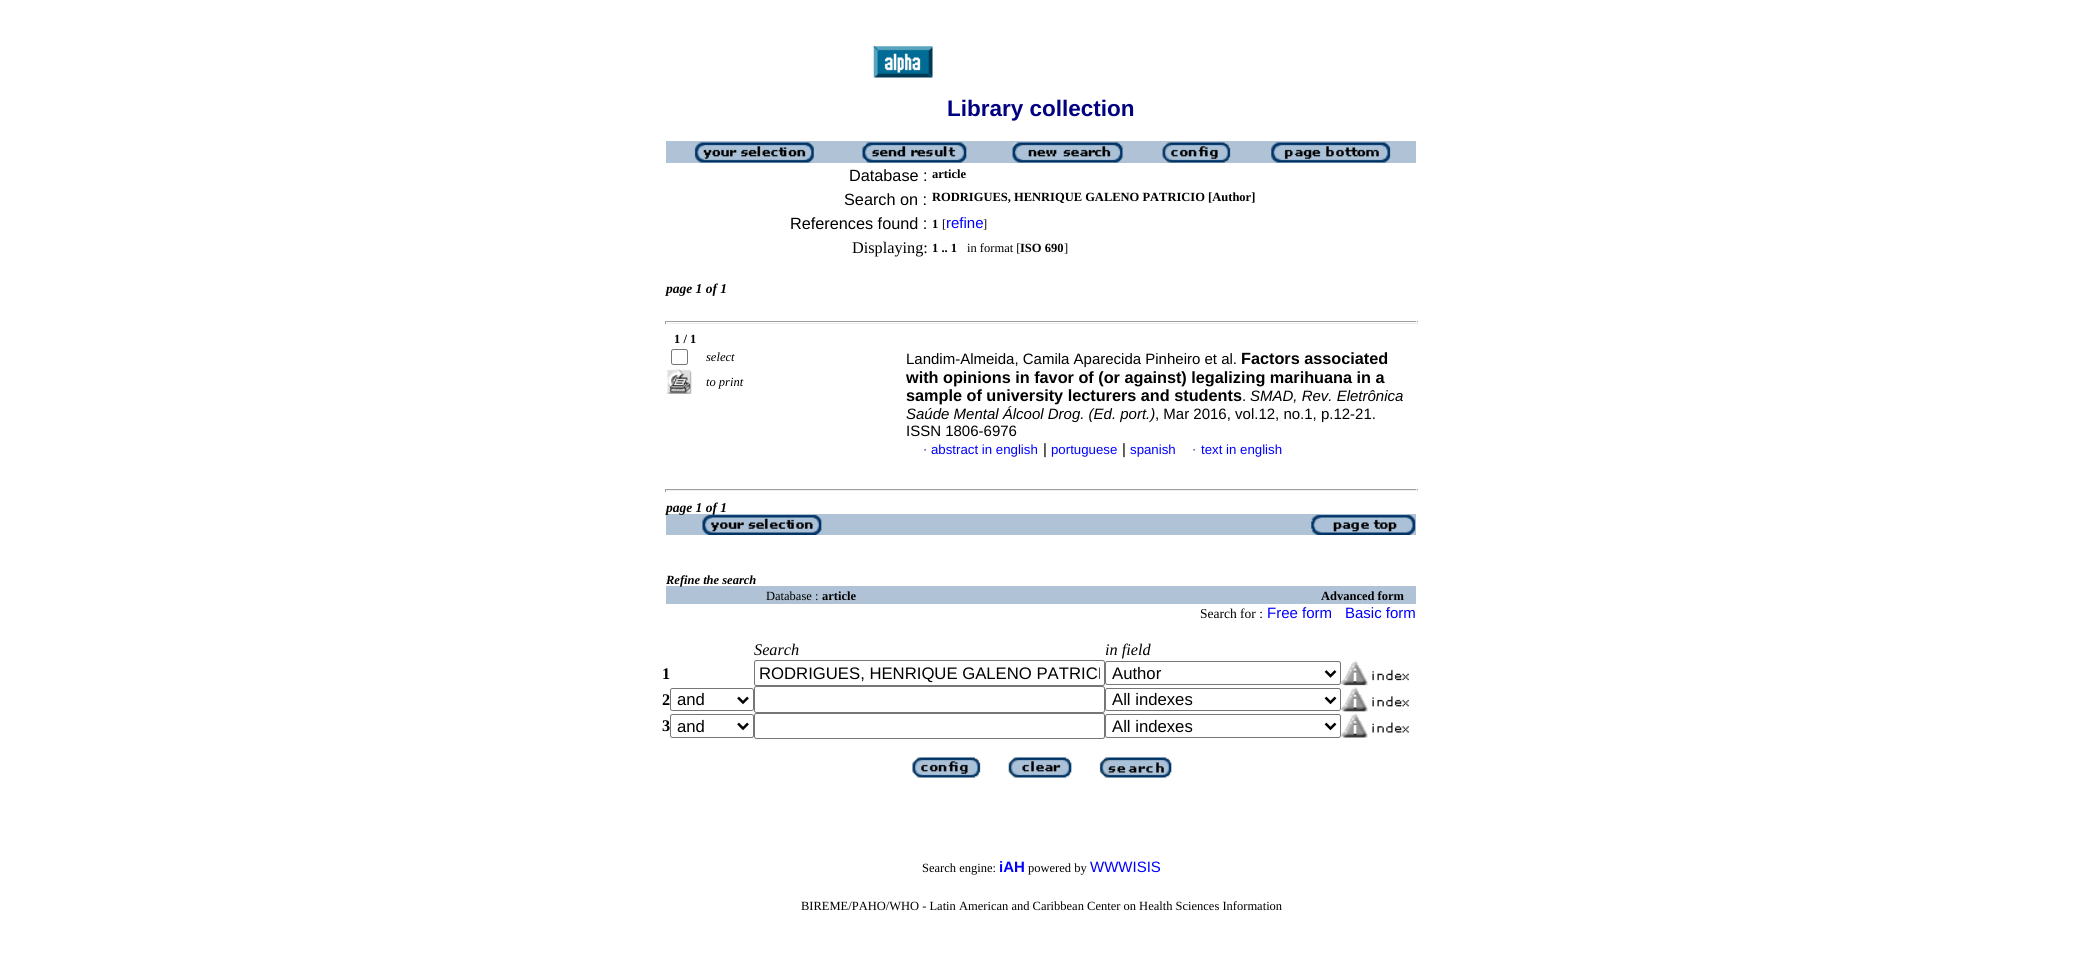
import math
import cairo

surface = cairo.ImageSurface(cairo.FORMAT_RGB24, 2082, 957)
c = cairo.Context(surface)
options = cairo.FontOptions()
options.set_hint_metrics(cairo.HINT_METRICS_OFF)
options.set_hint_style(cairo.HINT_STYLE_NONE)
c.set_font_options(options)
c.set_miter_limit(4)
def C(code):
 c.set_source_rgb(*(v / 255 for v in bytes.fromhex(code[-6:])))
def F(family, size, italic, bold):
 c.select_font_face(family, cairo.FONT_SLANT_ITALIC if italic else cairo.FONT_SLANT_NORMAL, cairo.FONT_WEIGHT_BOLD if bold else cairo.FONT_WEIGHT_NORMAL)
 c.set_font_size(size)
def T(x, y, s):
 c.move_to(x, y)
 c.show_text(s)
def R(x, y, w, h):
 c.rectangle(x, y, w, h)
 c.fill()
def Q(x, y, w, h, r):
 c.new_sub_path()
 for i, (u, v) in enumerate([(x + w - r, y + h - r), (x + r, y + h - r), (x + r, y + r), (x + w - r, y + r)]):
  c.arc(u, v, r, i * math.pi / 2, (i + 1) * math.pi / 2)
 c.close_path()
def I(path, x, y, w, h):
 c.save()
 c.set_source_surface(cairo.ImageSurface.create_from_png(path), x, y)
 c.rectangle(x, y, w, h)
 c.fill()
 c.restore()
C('ffffff')
c.paint()
I('1.png',873,46,60,32)
F('Liberation Sans',22.5,0,1)
C('000080')
T(947,116,'Library collection')
C('b0c2d5')
R(666,141,750,22)
I('2.png',694,142,120,21)
I('3.png',862,142,105,21)
I('4.png',1012,142,111,21)
I('5.png',1162,142,69,21)
I('6.png',1271,142,120,21)
F('Liberation Sans',16.25,0,0)
C('000000')
T(849,181,'Database :')
F('Liberation Serif',12.5,0,1)
T(932,178,'article')
F('Liberation Sans',16.25,0,0)
T(844,205,'Search on :')
F('Liberation Serif',12.5,0,1)
T(932,201,'RODRIGUES, HENRIQUE GALENO PATRICIO [Author]')
F('Liberation Sans',16.25,0,0)
T(790,229,'References found :')
F('Liberation Serif',12.5,0,1)
T(932,228,'1')
F('Liberation Serif',12.5,0,0)
T(942,228,'[')
F('Liberation Sans',15,0,0)
C('0000ff')
T(946,228,'refine')
F('Liberation Serif',12.5,0,0)
C('000000')
T(983,228,']')
F('Liberation Serif',16.25,0,0)
T(852,253,'Displaying:')
F('Liberation Serif',12.5,0,1)
T(932,252,'1 .. 1')
F('Liberation Serif',12.5,0,0)
T(967,252,'in format [')
F('Liberation Serif',12.5,0,1)
T(1020,252,'ISO 690')
F('Liberation Serif',12.5,0,0)
T(1064,252,']')
F('Liberation Serif',13.5,1,1)
T(666,293,'page 1 of 1')
C('9f9f9f')
R(665,321,753,1)
C('eeeeee')
R(1416,321,1,3)
R(665,323,753,1)
C('9f9f9f')
R(665,321,1,3)
F('Liberation Serif',12.5,0,1)
C('000000')
T(674,343,'1 / 1')
Q(671.5,349.5,16,15,2)
C('767676')
c.set_line_width(1)
c.stroke()
F('Liberation Serif',12.5,1,0)
C('000000')
T(706,361,'select')
I('7.png',666,368,26,26)
T(706,386,'to print')
F('Liberation Sans',15,0,0)
T(906,364,'Landim-Almeida, Camila Aparecida Pinheiro et al.')
F('Liberation Sans',16.25,0,1)
T(1241,364,'Factors associated')
T(906,383,'with opinions in favor of (or against) legalizing marihuana in a')
T(906,401,'sample of university lecturers and students')
F('Liberation Sans',15,0,0)
T(1242,401,'.')
F('Liberation Sans',15,1,0)
T(1250,401,'SMAD, Rev. Eletrônica')
T(906,419,'Saúde Mental Álcool Drog. (Ed. port.)')
F('Liberation Sans',15,0,0)
T(1155,419,', Mar 2016, vol.12, no.1, p.12-21.')
T(906,436,'ISSN 1806-6976')
F('Liberation Serif',12.5,0,0)
C('000080')
T(923,454,'·')
F('Liberation Sans',13.25,0,0)
C('0000ff')
T(931,454,'abstract in english')
F('Liberation Sans',15,0,0)
C('000000')
T(1043,454,'|')
F('Liberation Sans',13.25,0,0)
C('0000ff')
T(1051,454,'portuguese')
F('Liberation Sans',15,0,0)
C('000000')
T(1122,454,'|')
F('Liberation Sans',13.25,0,0)
C('0000ff')
T(1130,454,'spanish')
F('Liberation Serif',12.5,0,0)
C('000080')
T(1192,454,'·')
F('Liberation Sans',13.25,0,0)
C('0000ff')
T(1201,454,'text in english')
C('9f9f9f')
R(665,489,753,1)
C('eeeeee')
R(1416,489,1,3)
R(665,490,753,1)
C('9f9f9f')
R(665,489,1,3)
C('b0c2d5')
R(666,514,750,21)
F('Liberation Serif',13.5,1,1)
C('000000')
T(666,512,'page 1 of 1')
I('8.png',702,514,120,21)
I('9.png',1311,514,105,21)
C('b0c2d5')
R(666,586,750,18)
F('Liberation Serif',12.5,1,1)
C('000000')
T(666,584,'Refine the search')
F('Liberation Serif',12.5,0,0)
T(766,600,'Database :')
F('Liberation Serif',12.5,0,1)
T(822,600,'article')
T(1321,600,'Advanced form')
F('Liberation Serif',13.5,0,0)
T(1200,618,'Search for :')
F('Liberation Sans',15,0,0)
C('0000ff')
T(1267,618,'Free form')
T(1345,618,'Basic form')
F('Liberation Serif',16.25,1,0)
C('000000')
T(754,655,'Search')
T(1105,655,'in field')
F('Liberation Serif',16.25,0,1)
T(662,679,'1')
Q(754.5,660.5,350,25,2)
C('767676')
c.stroke()
c.save()
c.rectangle(759,664,341,19)
c.clip()
F('Liberation Sans',16.7,0,0)
C('000000')
T(759,679,'RODRIGUES, HENRIQUE GALENO PATRICI')
c.restore()
Q(1105.5,661.5,235,23,2)
c.stroke()
c.new_path()
c.move_to(1325.5,671)
c.line_to(1330.5,676)
c.line_to(1335.5,671)
C('000000')
c.set_line_width(2.5)
c.stroke()
F('Liberation Sans',16.7,0,0)
T(1112,679,'Author')
I('10.png',1341,661,68,25)
F('Liberation Serif',16.25,0,1)
T(662,705,'2')
Q(670.5,688.5,83,22,2)
C('767676')
c.set_line_width(1)
c.stroke()
c.new_path()
c.move_to(738,697.5)
c.line_to(743,702.5)
c.line_to(748,697.5)
C('000000')
c.set_line_width(2.5)
c.stroke()
F('Liberation Sans',16.7,0,0)
T(677,705,'and')
Q(754.5,686.5,350,26,2)
C('767676')
c.set_line_width(1)
c.stroke()
Q(1105.5,688.5,235,22,2)
c.stroke()
c.new_path()
c.move_to(1325.5,697.5)
c.line_to(1330.5,702.5)
c.line_to(1335.5,697.5)
C('000000')
c.set_line_width(2.5)
c.stroke()
T(1112,705,'All indexes')
I('11.png',1341,687,68,25)
F('Liberation Serif',16.25,0,1)
T(662,731,'3')
Q(670.5,714.5,83,23,2)
C('767676')
c.set_line_width(1)
c.stroke()
c.new_path()
c.move_to(738,723.5)
c.line_to(743,728.5)
c.line_to(748,723.5)
C('000000')
c.set_line_width(2.5)
c.stroke()
F('Liberation Sans',16.7,0,0)
T(677,732,'and')
Q(754.5,713.5,350,25,2)
C('767676')
c.set_line_width(1)
c.stroke()
Q(1105.5,714.5,235,23,2)
c.stroke()
c.new_path()
c.move_to(1325.5,723.5)
c.line_to(1330.5,728.5)
c.line_to(1335.5,723.5)
C('000000')
c.set_line_width(2.5)
c.stroke()
T(1112,732,'All indexes')
I('12.png',1341,713,68,25)
I('13.png',912,757,69,21)
I('14.png',1008,757,64,21)
I('15.png',1099,757,73,21)
F('Liberation Serif',12.5,0,0)
T(922,872,'Search engine:')
F('Liberation Sans',15,0,1)
C('0000ff')
T(999,872,'iAH')
F('Liberation Serif',12.5,0,0)
C('000000')
T(1028,872,'powered by')
F('Liberation Sans',15,0,0)
C('0000ff')
T(1090,872,'WWWISIS')
F('Liberation Serif',12.5,0,0)
C('000000')
T(801,910,'BIREME/PAHO/WHO - Latin American and Caribbean Center on Health Sciences Information')
surface.write_to_png('o.png')
